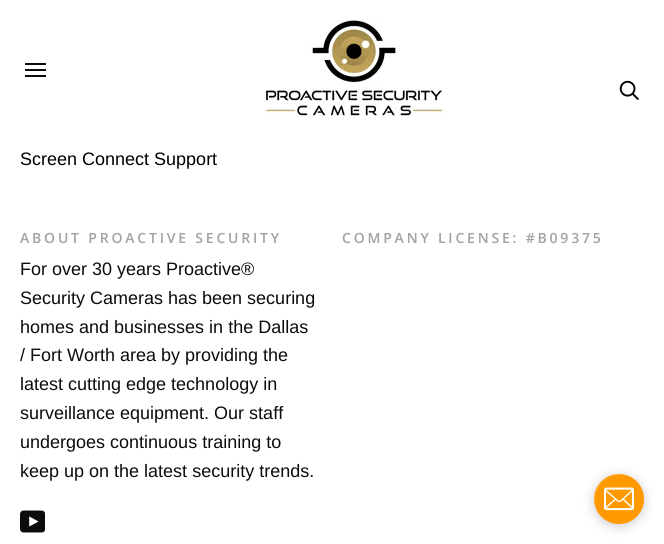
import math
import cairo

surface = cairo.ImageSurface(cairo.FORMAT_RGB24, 664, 544)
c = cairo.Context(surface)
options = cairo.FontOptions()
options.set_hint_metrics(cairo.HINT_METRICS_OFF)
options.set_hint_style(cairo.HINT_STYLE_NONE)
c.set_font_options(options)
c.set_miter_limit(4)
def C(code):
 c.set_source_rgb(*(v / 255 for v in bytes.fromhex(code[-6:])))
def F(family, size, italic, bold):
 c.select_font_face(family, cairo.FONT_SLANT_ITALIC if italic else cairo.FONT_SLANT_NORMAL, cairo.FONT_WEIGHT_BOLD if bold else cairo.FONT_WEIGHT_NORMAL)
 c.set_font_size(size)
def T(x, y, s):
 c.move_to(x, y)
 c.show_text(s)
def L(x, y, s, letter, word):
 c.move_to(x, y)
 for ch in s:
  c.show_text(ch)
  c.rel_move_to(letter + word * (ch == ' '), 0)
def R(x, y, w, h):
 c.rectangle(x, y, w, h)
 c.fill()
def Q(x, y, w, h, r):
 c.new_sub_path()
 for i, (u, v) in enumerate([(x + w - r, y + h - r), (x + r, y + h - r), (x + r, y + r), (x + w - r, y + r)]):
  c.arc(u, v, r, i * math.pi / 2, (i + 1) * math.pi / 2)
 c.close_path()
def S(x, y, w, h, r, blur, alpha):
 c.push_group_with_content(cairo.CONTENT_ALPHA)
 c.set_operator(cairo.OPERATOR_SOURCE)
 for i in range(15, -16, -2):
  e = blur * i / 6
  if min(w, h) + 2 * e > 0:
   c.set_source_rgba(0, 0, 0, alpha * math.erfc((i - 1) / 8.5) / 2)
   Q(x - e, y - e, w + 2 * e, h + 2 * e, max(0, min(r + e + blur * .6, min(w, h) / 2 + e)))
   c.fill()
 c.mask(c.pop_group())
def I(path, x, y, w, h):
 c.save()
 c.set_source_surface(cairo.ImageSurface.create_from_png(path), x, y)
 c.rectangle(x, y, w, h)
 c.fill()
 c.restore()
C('ffffff')
c.paint()
C('0c0c0d')
R(25,63,21,2)
R(25,69,21,2)
R(25,75,21,2)
I('1.png',265,20,180,96)
I('2.png',619,80,20,20)
F('Liberation Sans',18,0,0)
C('000000')
T(20,165,'Screen Connect Support')
F('Open Sans SemiBold',14,0,0)
C('a1a1a6')
L(20,243,'ABOUT PROACTIVE SECURITY',2.8,0)
F('Liberation Sans',18,0,0)
C('0c0c0d')
T(20,275,'For over 30 years Proactive®')
T(20,304,'Security Cameras has been securing')
T(20,333,'homes and businesses in the Dallas')
T(20,361,'/ Fort Worth area by providing the')
T(20,390,'latest cutting edge technology in')
T(20,419,'surveillance equipment. Our staff')
T(20,448,'undergoes continuous training to')
T(20,477,'keep up on the latest security trends.')
I('3.png',20,510,25,23)
F('Open Sans SemiBold',14,0,0)
C('a1a1a6')
L(342,243,'COMPANY LICENSE: #B09375',2.8,0)
C('808080')
S(594,476,50,50,25,5.5,.4)
C('ff9900')
c.arc(619,499,25,0,2 * math.pi)
c.fill()
c.set_source_rgba(1,1,1,0.15)
c.new_path()
c.move_to(620,475)
c.curve_to(625,475,629,476,633,478)
c.curve_to(609,463,582,493,599,515)
c.curve_to(590,500,597,475,620,475)
c.close_path()
c.fill()
I('4.png',604,487,30,24)
surface.write_to_png('o.png')
